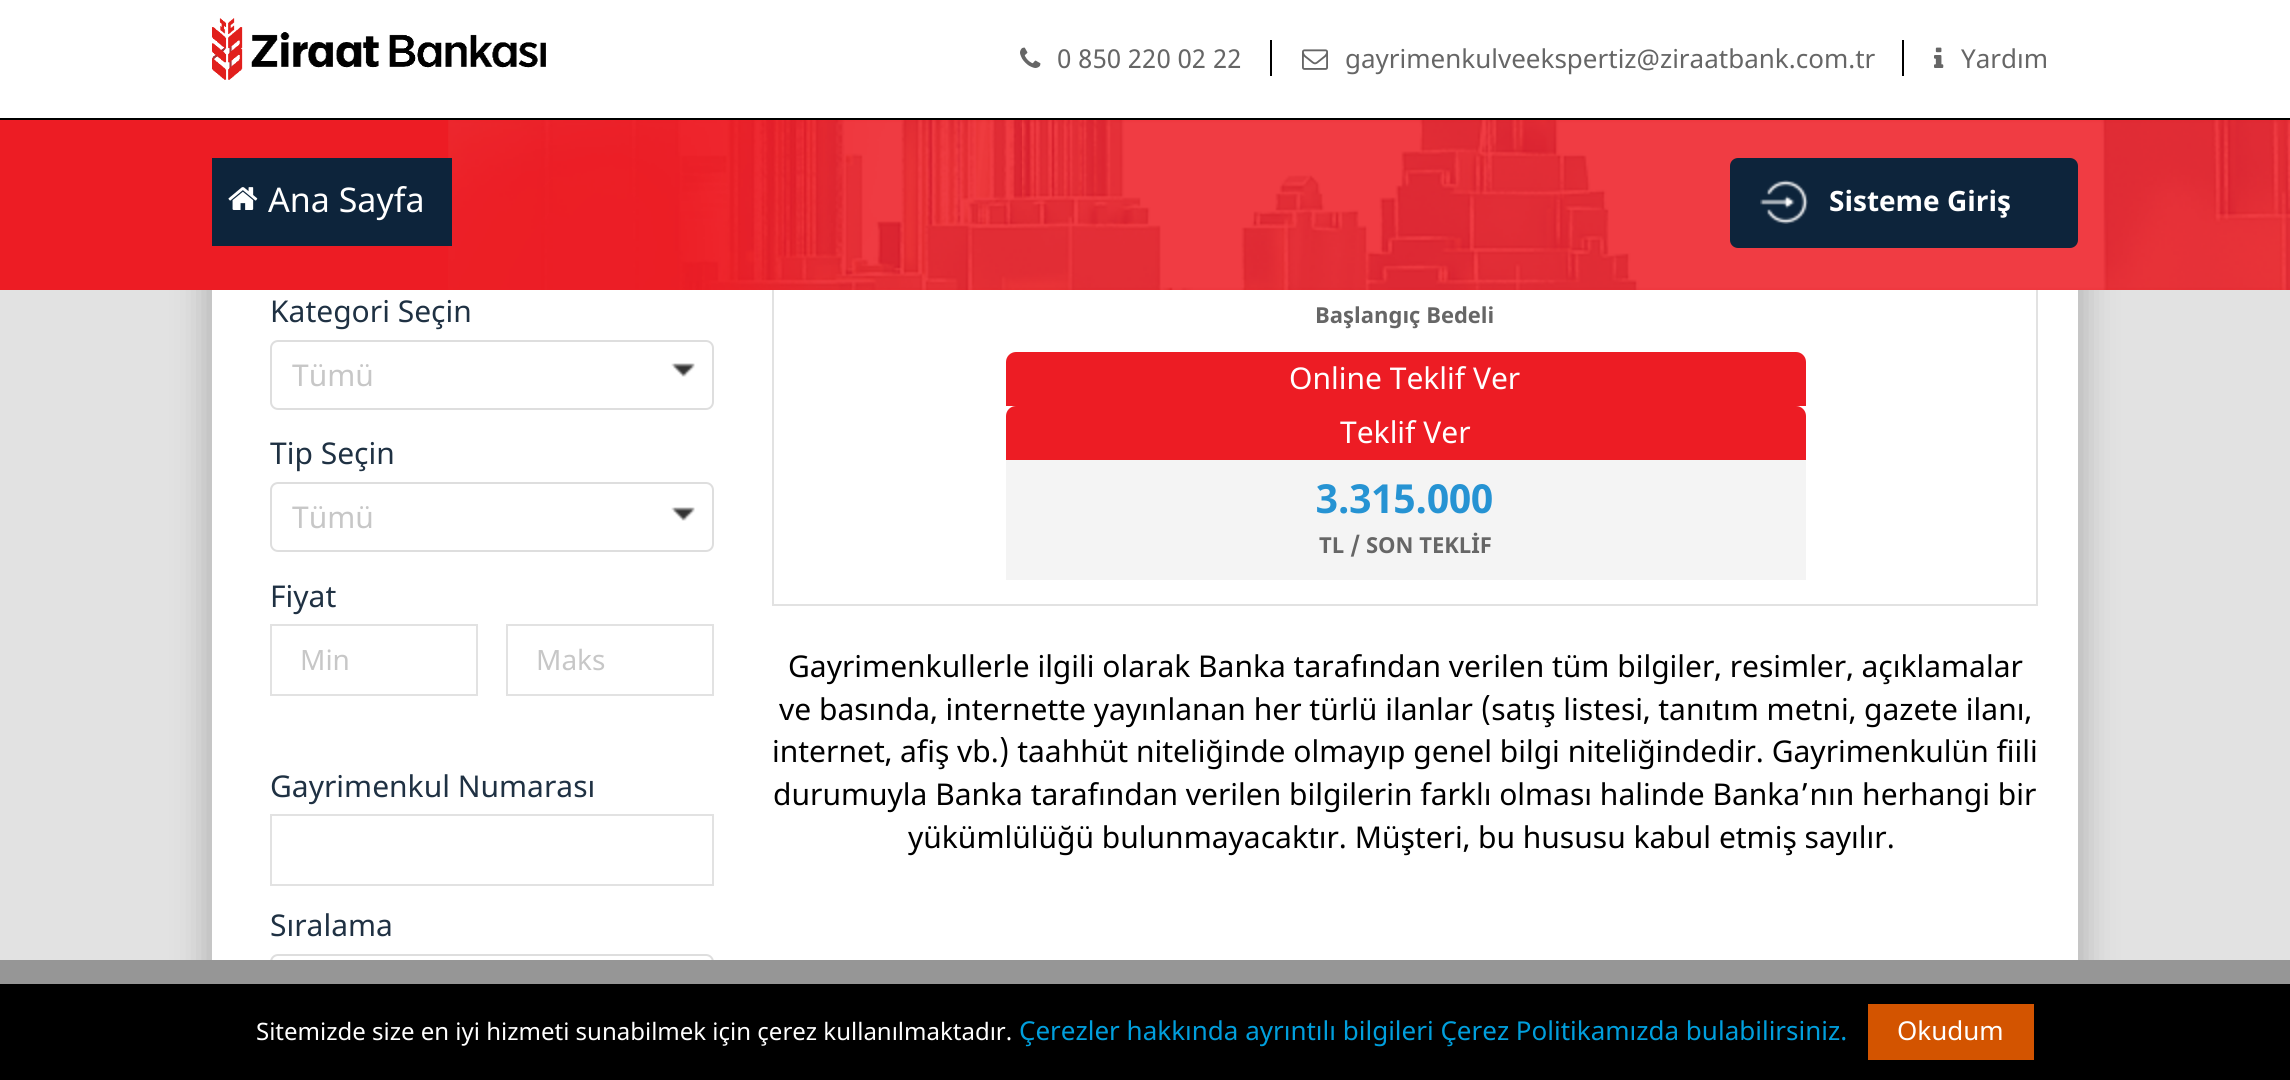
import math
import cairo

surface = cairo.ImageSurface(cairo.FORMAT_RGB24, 2290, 1080)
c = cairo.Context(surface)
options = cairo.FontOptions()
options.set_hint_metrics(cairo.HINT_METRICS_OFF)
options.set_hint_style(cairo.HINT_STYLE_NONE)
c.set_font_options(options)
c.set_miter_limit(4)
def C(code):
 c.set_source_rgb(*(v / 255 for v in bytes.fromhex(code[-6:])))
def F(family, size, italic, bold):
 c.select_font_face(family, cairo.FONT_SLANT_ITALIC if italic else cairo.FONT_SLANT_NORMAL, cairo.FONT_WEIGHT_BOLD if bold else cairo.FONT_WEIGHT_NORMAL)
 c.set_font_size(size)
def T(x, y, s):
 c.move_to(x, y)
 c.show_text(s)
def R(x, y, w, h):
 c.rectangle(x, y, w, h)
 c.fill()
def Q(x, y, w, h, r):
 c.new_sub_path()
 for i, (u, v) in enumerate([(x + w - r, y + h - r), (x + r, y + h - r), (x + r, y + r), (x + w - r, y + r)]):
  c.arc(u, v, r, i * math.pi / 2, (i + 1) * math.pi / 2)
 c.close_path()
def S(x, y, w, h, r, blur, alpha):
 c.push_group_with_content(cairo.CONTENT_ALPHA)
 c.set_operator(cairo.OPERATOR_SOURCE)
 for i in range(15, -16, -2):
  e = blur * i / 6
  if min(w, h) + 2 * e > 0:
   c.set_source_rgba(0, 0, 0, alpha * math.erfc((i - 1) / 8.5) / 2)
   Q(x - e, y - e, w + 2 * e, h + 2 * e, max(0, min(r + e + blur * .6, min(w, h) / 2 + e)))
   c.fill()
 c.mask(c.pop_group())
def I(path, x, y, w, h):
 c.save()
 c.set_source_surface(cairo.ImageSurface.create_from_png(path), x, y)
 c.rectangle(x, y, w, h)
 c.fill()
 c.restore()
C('e2e2e2')
c.paint()
C('000000')
S(204,-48,1882,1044,0,16,.2)
C('ffffff')
R(212,290,1866,670)
c.rectangle(773,-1,1264,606)
C('e2e2e2')
c.stroke()
C('ffffff')
R(0,0,2290,118)
C('000000')
R(0,118,2290,2)
I('1.png',212,18,334,62)
I('2.png',1020,47,21,21)
F('Noto Sans',26,0,0)
C('666666')
T(1057,68,'0 850 220 02 22')
C('000000')
R(1270,40,2,36)
I('3.png',1302,49,26,21)
C('666666')
T(1345,68,'gayrimenkulveekspertiz@ziraatbank.com.tr')
C('000000')
R(1902,40,2,36)
I('4.png',1934,47,10,21)
C('666666')
T(1961,68,'Yardım')
C('ed1c24')
R(0,120,2290,170)
I('5.png',448,120,1842,170)
C('0d243b')
R(212,158,240,88)
I('6.png',228,187,30,23)
F('Noto Sans',34,0,0)
C('ffffff')
T(268,212,'Ana Sayfa')
C('0d243b')
Q(1730,158,348,90,8)
c.fill()
I('7.png',1760,180,48,44)
F('Noto Sans',28,0,1)
C('ffffff')
T(1829,211,'Sisteme Giriş')
F('Noto Sans',30,0,0)
C('1f3143')
T(270,322,'Kategori Seçin')
Q(271,341,442,68,7)
C('dedede')
c.stroke()
C('c7c7c7')
T(292,386,'Tümü')
I('8.png',671,363,24,14)
C('1f3143')
T(270,464,'Tip Seçin')
Q(271,483,442,68,7)
C('dedede')
c.stroke()
C('c7c7c7')
T(292,528,'Tümü')
I('8.png',671,507,24,14)
C('1f3143')
T(270,607,'Fiyat')
c.rectangle(271,625,206,70)
C('e2e2e2')
c.stroke()
F('Noto Sans',28,0,0)
C('c7c7c7')
T(300,670,'Min')
c.rectangle(507,625,206,70)
C('e2e2e2')
c.stroke()
C('c7c7c7')
T(536,670,'Maks')
F('Noto Sans',30,0,0)
C('1f3143')
T(270,797,'Gayrimenkul Numarası')
c.rectangle(271,815,442,70)
C('e2e2e2')
c.stroke()
C('1f3143')
T(270,936,'Sıralama')
C('ffffff')
c.new_path()
c.move_to(278,954)
c.line_to(706,954)
c.curve_to(710.5,954,714,957.5,714,962)
c.line_to(714,960)
c.line_to(270,960)
c.line_to(270,962)
c.curve_to(270,957.5,273.5,954,278,954)
c.close_path()
c.fill()
C('969696')
R(0,960,2290,24)
c.save()
c.rectangle(212,0,560,960)
c.clip()
Q(271,955,442,68,7)
C('dedede')
c.stroke()
c.restore()
F('Noto Sans',22,0,1)
C('666666')
T(1315,323,'Başlangıç Bedeli')
C('ed1c24')
c.new_path()
c.move_to(1016,352)
c.line_to(1796,352)
c.curve_to(1801.5,352,1806,356.5,1806,362)
c.line_to(1806,406)
c.line_to(1006,406)
c.line_to(1006,362)
c.curve_to(1006,356.5,1010.5,352,1016,352)
c.close_path()
c.fill()
F('Noto Sans',30,0,0)
C('ffffff')
T(1289,389,'Online Teklif Ver')
C('ed1c24')
c.new_path()
c.move_to(1016,406)
c.line_to(1796,406)
c.curve_to(1801.5,406,1806,410.5,1806,416)
c.line_to(1806,460)
c.line_to(1006,460)
c.line_to(1006,416)
c.curve_to(1006,410.5,1010.5,406,1016,406)
c.close_path()
c.fill()
C('ffffff')
T(1340,443,'Teklif Ver')
C('f4f4f4')
R(1006,460,800,120)
F('Noto Sans',40,0,1)
C('2693d3')
T(1316,513,'3.315.000')
F('Noto Sans',22,0,1)
C('666666')
T(1319,553,'TL / SON TEKLİF')
F('Noto Sans',30,0,0)
C('000000')
T(788,677,'Gayrimenkullerle ilgili olarak Banka tarafından verilen tüm bilgiler, resimler, açıklamalar')
T(779,720,'ve basında, internette yayınlanan her türlü ilanlar (satış listesi, tanıtım metni, gazete ilanı,')
T(772,762,'internet, afiş vb.) taahhüt niteliğinde olmayıp genel bilgi niteliğindedir. Gayrimenkulün fiili')
T(773,805,'durumuyla Banka tarafından verilen bilgilerin farklı olması halinde Banka’nın herhangi bir')
T(908,848,'yükümlülüğü bulunmayacaktır. Müşteri, bu hususu kabul etmiş sayılır.')
R(0,984,2290,96)
F('Noto Sans',24,0,0)
C('ffffff')
T(256,1040,'Sitemizde size en iyi hizmeti sunabilmek için çerez kullanılmaktadır.')
F('Noto Sans',26,0,0)
C('009fdd')
T(1019,1040,'Çerezler hakkında ayrıntılı bilgileri Çerez Politikamızda bulabilirsiniz.')
C('d35400')
R(1868,1004,166,56)
C('ffffff')
T(1897,1040,'Okudum')
surface.write_to_png('o.png')
